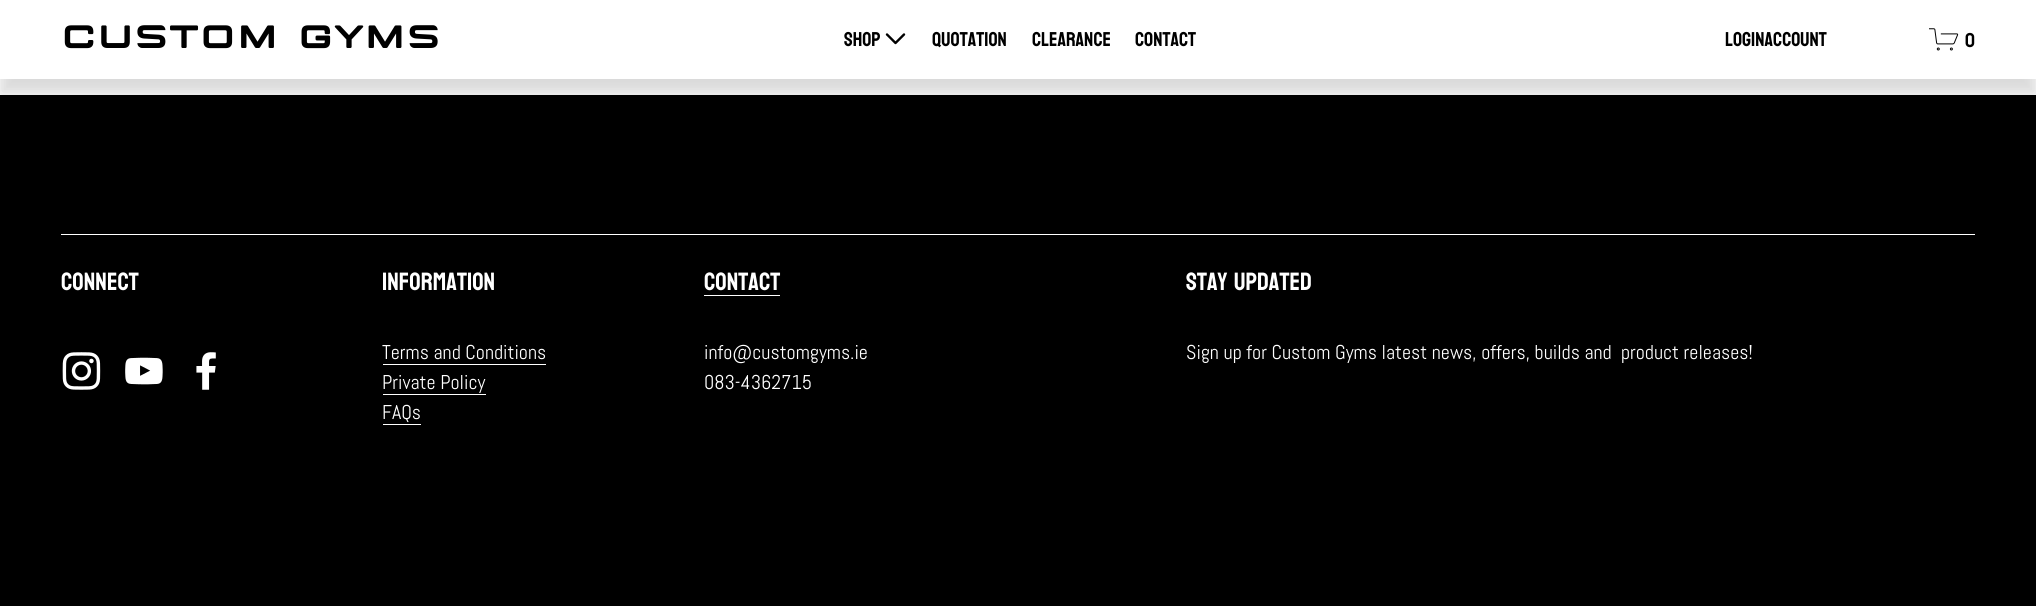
import math
import cairo

surface = cairo.ImageSurface(cairo.FORMAT_RGB24, 2036, 606)
c = cairo.Context(surface)
options = cairo.FontOptions()
options.set_hint_metrics(cairo.HINT_METRICS_OFF)
options.set_hint_style(cairo.HINT_STYLE_NONE)
c.set_font_options(options)
c.set_miter_limit(4)
def C(code):
 c.set_source_rgb(*(v / 255 for v in bytes.fromhex(code[-6:])))
def F(family, size, italic, bold):
 c.select_font_face(family, cairo.FONT_SLANT_ITALIC if italic else cairo.FONT_SLANT_NORMAL, cairo.FONT_WEIGHT_BOLD if bold else cairo.FONT_WEIGHT_NORMAL)
 c.set_font_size(size)
def T(x, y, s):
 c.move_to(x, y)
 c.show_text(s)
def R(x, y, w, h):
 c.rectangle(x, y, w, h)
 c.fill()
def Q(x, y, w, h, r):
 c.new_sub_path()
 for i, (u, v) in enumerate([(x + w - r, y + h - r), (x + r, y + h - r), (x + r, y + r), (x + w - r, y + r)]):
  c.arc(u, v, r, i * math.pi / 2, (i + 1) * math.pi / 2)
 c.close_path()
def S(x, y, w, h, r, blur, alpha):
 c.push_group_with_content(cairo.CONTENT_ALPHA)
 c.set_operator(cairo.OPERATOR_SOURCE)
 for i in range(15, -16, -2):
  e = blur * i / 6
  if min(w, h) + 2 * e > 0:
   c.set_source_rgba(0, 0, 0, alpha * math.erfc((i - 1) / 8.5) / 2)
   Q(x - e, y - e, w + 2 * e, h + 2 * e, max(0, min(r + e + blur * .6, min(w, h) / 2 + e)))
   c.fill()
 c.mask(c.pop_group())
def I(path, x, y, w, h):
 c.save()
 c.set_source_surface(cairo.ImageSurface.create_from_png(path), x, y)
 c.rectangle(x, y, w, h)
 c.fill()
 c.restore()
C('ffffff')
c.paint()
C('000000')
R(0,95,2036,511)
c.save()
c.set_fill_rule(cairo.FILL_RULE_EVEN_ODD)
c.new_path()
c.move_to(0,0)
c.line_to(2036,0)
c.line_to(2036,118)
c.line_to(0,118)
c.close_path()
c.move_to(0,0)
c.line_to(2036,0)
c.line_to(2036,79)
c.line_to(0,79)
c.close_path()
c.clip()
C('000000')
S(0,15,2036,79,0,7.5,.15)
c.restore()
F('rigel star',32.25,0,0)
T(61,48,'CUSTOM GYMS')
F('Bayon',20,0,0)
T(844,46,'SHOP')
c.new_path()
c.move_to(904,34.5)
c.line_to(895.5,43)
c.line_to(887,34.5)
c.set_line_width(2.4)
c.set_line_cap(cairo.LINE_CAP_ROUND)
c.set_line_join(cairo.LINE_JOIN_ROUND)
c.stroke()
T(932,46,'QUOTATION')
T(1032,46,'CLEARANCE')
T(1135,46,'CONTACT')
T(1725,46,'LOGINACCOUNT')
I('1.png',1929,28,30,23)
T(1965,47,'0')
C('ffffff')
R(61,234,1914,1)
F('Bayon',25,0,0)
T(61,290,'CONNECT')
T(382,290,'INFORMATION')
F('Abel',20,0,0)
T(382,359,'Terms and Conditions')
R(383,364,163,1)
T(382,389,'Private Policy')
R(383,394,103,1)
T(382,419,'FAQs')
R(383,424,38,1)
F('Bayon',25,0,0)
T(704,290,'CONTACT')
R(704,295,76,1)
F('Abel',20,0,0)
T(704,359,'info@customgyms.ie')
T(704,389,'083-4362715')
F('Bayon',25,0,0)
T(1186,290,'STAY UPDATED')
F('Abel',20,0,0)
T(1186,359,'Sign up for Custom Gyms latest news, offers, builds and  product releases!')
I('2.png',62,352,39,38)
I('3.png',125,357,38,28)
I('4.png',196,352,20,38)
surface.write_to_png('o.png')
